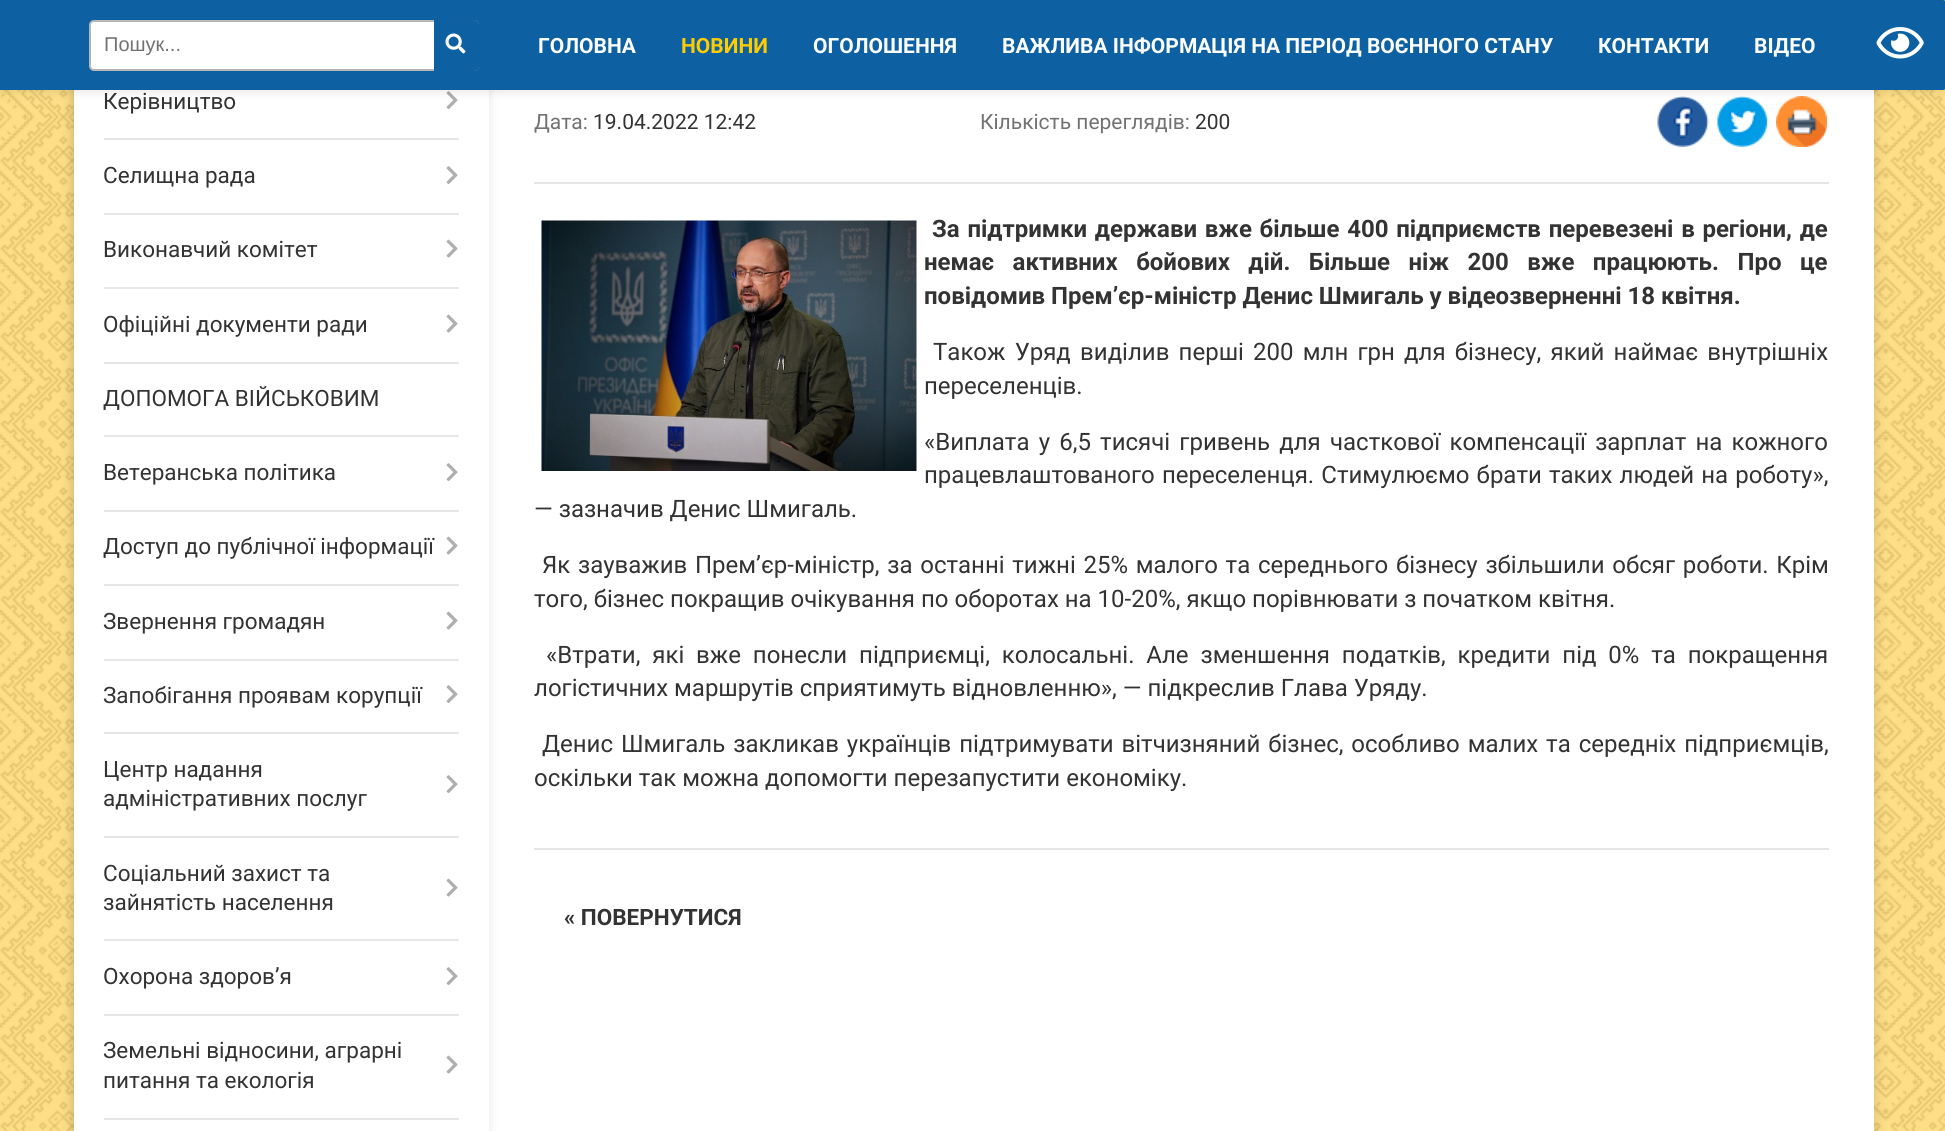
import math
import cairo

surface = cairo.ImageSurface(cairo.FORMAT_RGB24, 1945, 1131)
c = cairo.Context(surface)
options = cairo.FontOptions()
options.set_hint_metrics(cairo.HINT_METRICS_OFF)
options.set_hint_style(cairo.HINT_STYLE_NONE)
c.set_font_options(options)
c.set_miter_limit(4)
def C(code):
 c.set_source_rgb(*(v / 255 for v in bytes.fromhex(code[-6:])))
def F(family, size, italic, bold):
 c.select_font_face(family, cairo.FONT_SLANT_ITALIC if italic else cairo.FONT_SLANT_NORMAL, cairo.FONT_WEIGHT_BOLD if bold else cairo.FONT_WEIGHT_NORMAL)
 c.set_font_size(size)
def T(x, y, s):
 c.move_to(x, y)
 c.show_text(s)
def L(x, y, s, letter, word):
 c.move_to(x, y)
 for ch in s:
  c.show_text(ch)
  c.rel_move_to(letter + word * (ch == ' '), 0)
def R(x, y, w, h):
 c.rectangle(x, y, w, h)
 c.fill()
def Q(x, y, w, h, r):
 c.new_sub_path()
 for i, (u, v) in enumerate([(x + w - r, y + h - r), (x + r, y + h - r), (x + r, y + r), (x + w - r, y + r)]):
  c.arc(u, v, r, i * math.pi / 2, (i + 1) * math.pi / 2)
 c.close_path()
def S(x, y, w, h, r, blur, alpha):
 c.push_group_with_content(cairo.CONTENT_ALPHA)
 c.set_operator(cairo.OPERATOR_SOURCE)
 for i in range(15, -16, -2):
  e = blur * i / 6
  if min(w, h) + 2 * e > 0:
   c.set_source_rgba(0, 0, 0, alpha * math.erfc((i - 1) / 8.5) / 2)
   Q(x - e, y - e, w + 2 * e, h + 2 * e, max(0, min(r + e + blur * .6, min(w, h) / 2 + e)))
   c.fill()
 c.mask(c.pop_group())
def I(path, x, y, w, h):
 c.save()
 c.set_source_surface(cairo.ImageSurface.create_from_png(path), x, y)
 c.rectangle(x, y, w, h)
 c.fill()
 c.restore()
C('ffda75')
c.paint()
I('1.png',0,0,1945,1131)
C('000000')
S(74,-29,1800,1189,6,7.5,.15)
C('ffffff')
R(74,90,1800,1041)
c.save()
c.set_fill_rule(cairo.FILL_RULE_EVEN_ODD)
c.new_path()
c.move_to(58,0)
c.line_to(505,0)
c.line_to(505,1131)
c.line_to(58,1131)
c.close_path()
c.move_to(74,-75)
c.line_to(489,-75)
c.line_to(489,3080)
c.line_to(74,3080)
c.close_path()
c.clip()
C('000000')
S(74,-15,415,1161,0,5,.1)
c.restore()
F('Roboto',22.5,0,0)
C('333333')
T(103,109,'Керівництво')
C('e6e6e6')
R(104,138,355,2)
I('2.png',446,91,12,18)
C('333333')
T(103,183,'Селищна рада')
C('e6e6e6')
R(104,213,355,2)
I('2.png',446,166,12,18)
C('333333')
T(103,257,'Виконавчий комітет')
C('e6e6e6')
R(104,287,355,2)
I('3.png',446,239,12,19)
C('333333')
T(103,332,'Офіційні документи ради')
C('e6e6e6')
R(104,362,355,2)
I('3.png',446,314,12,19)
C('333333')
T(103,406,'ДОПОМОГА ВІЙСЬКОВИМ')
C('e6e6e6')
R(104,435,355,2)
C('333333')
T(103,480,'Ветеранська політика')
C('e6e6e6')
R(104,510,355,2)
I('2.png',446,463,12,18)
C('333333')
T(103,554,'Доступ до публічної інформації')
C('e6e6e6')
R(104,584,355,2)
I('3.png',446,536,12,19)
C('333333')
T(103,629,'Звернення громадян')
C('e6e6e6')
R(104,659,355,2)
I('3.png',446,611,12,19)
C('333333')
T(103,703,'Запобігання проявам корупції')
C('e6e6e6')
R(104,732,355,2)
I('2.png',446,685,12,18)
C('333333')
T(103,777,'Центр надання')
T(103,806,'адміністративних послуг')
C('e6e6e6')
R(104,836,355,2)
I('2.png',446,775,12,18)
C('333333')
T(103,881,'Соціальний захист та')
T(103,910,'зайнятість населення')
C('e6e6e6')
R(104,939,355,2)
I('3.png',446,878,12,19)
C('333333')
T(103,984,'Охорона здоров’я')
C('e6e6e6')
R(104,1014,355,2)
I('2.png',446,967,12,18)
C('333333')
T(103,1058,'Земельні відносини, аграрні')
T(103,1088,'питання та екологія')
C('e6e6e6')
R(104,1118,355,2)
I('3.png',446,1055,12,19)
I('4.png',1657,96,52,51)
I('5.png',1717,96,51,51)
I('6.png',1776,96,51,51)
C('000000')
S(-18,2,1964,90,3,5,.1)
C('0d61a2')
Q(-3,0,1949,90,3)
c.fill()
F('Roboto',21,0,1)
C('ffffff')
T(538,53,'ГОЛОВНА')
C('ffcc00')
T(681,53,'НОВИНИ')
C('ffffff')
T(813,53,'ОГОЛОШЕННЯ')
T(1002,53,'ВАЖЛИВА ІНФОРМАЦІЯ НА ПЕРІОД ВОЄННОГО СТАНУ')
T(1598,53,'КОНТАКТИ')
T(1754,53,'ВІДЕО')
F('Roboto',21,0,0)
C('727272')
T(534,129,'Дата:')
C('333333')
T(593,129,'19.04.2022 12:42')
C('727272')
T(980,129,'Кількість переглядів:')
C('333333')
T(1195,129,'200')
C('e5e5e5')
R(534,182,1295,2)
I('7.png',541,220,376,251)
F('Roboto',24,0,1)
C('333333')
L(932,237,'За підтримки держави вже більше 400 підприємств перевезені в регіони, де',0,1.75)
L(924,270,'немає активних бойових дій. Більше ніж 200 вже працюють. Про це',0,12.5)
T(924,304,'повідомив Прем’єр-міністр Денис Шмигаль у відеозверненні 18 квітня.')
F('Roboto',24,0,0)
L(933,360,'Також Уряд виділив перші 200 млн грн для бізнесу, який наймає внутрішніх',0,3.25)
T(924,394,'переселенців.')
L(924,450,'«Виплата у 6,5 тисячі гривень для часткової компенсації зарплат на кожного',0,3.25)
L(924,483,'працевлаштованого переселенця. Стимулюємо брати таких людей на роботу»,',0,1.25)
T(534,517,'— зазначив Денис Шмигаль.')
L(542,573,'Як зауважив Прем’єр-міністр, за останні тижні 25% малого та середнього бізнесу збільшили обсяг роботи. Крім',0,1.75)
T(534,607,'того, бізнес покращив очікування по оборотах на 10-20%, якщо порівнювати з початком квітня.')
L(546,663,'«Втрати, які вже понесли підприємці, колосальні. Але зменшення податків, кредити під 0% та покращення',0,5.9)
T(534,696,'логістичних маршрутів сприятимуть відновленню», — підкреслив Глава Уряду.')
L(542,752,'Денис Шмигаль закликав українців підтримувати вітчизняний бізнес, особливо малих та середніх підприємців,',0,2)
T(534,786,'оскільки так можна допомогти перезапустити економіку.')
C('e5e5e5')
R(534,848,1295,2)
F('Roboto',22.5,0,1)
C('333333')
T(564,925,'« ПОВЕРНУТИСЯ')
C('ffffff')
Q(90,21,388,49,4)
c.fill_preserve()
C('b7b7b7')
c.stroke()
F('Liberation Sans',20,0,0)
C('727272')
T(104,51,'Пошук...')
C('0d61a2')
c.new_path()
c.move_to(434,20)
c.line_to(474,20)
c.curve_to(477,20,479,22,479,25)
c.line_to(479,66)
c.curve_to(479,69,477,71,474,71)
c.line_to(434,71)
c.close_path()
c.fill()
I('8.png',445,33,21,21)
I('9.png',1876,27,48,32)
surface.write_to_png('o.png')
